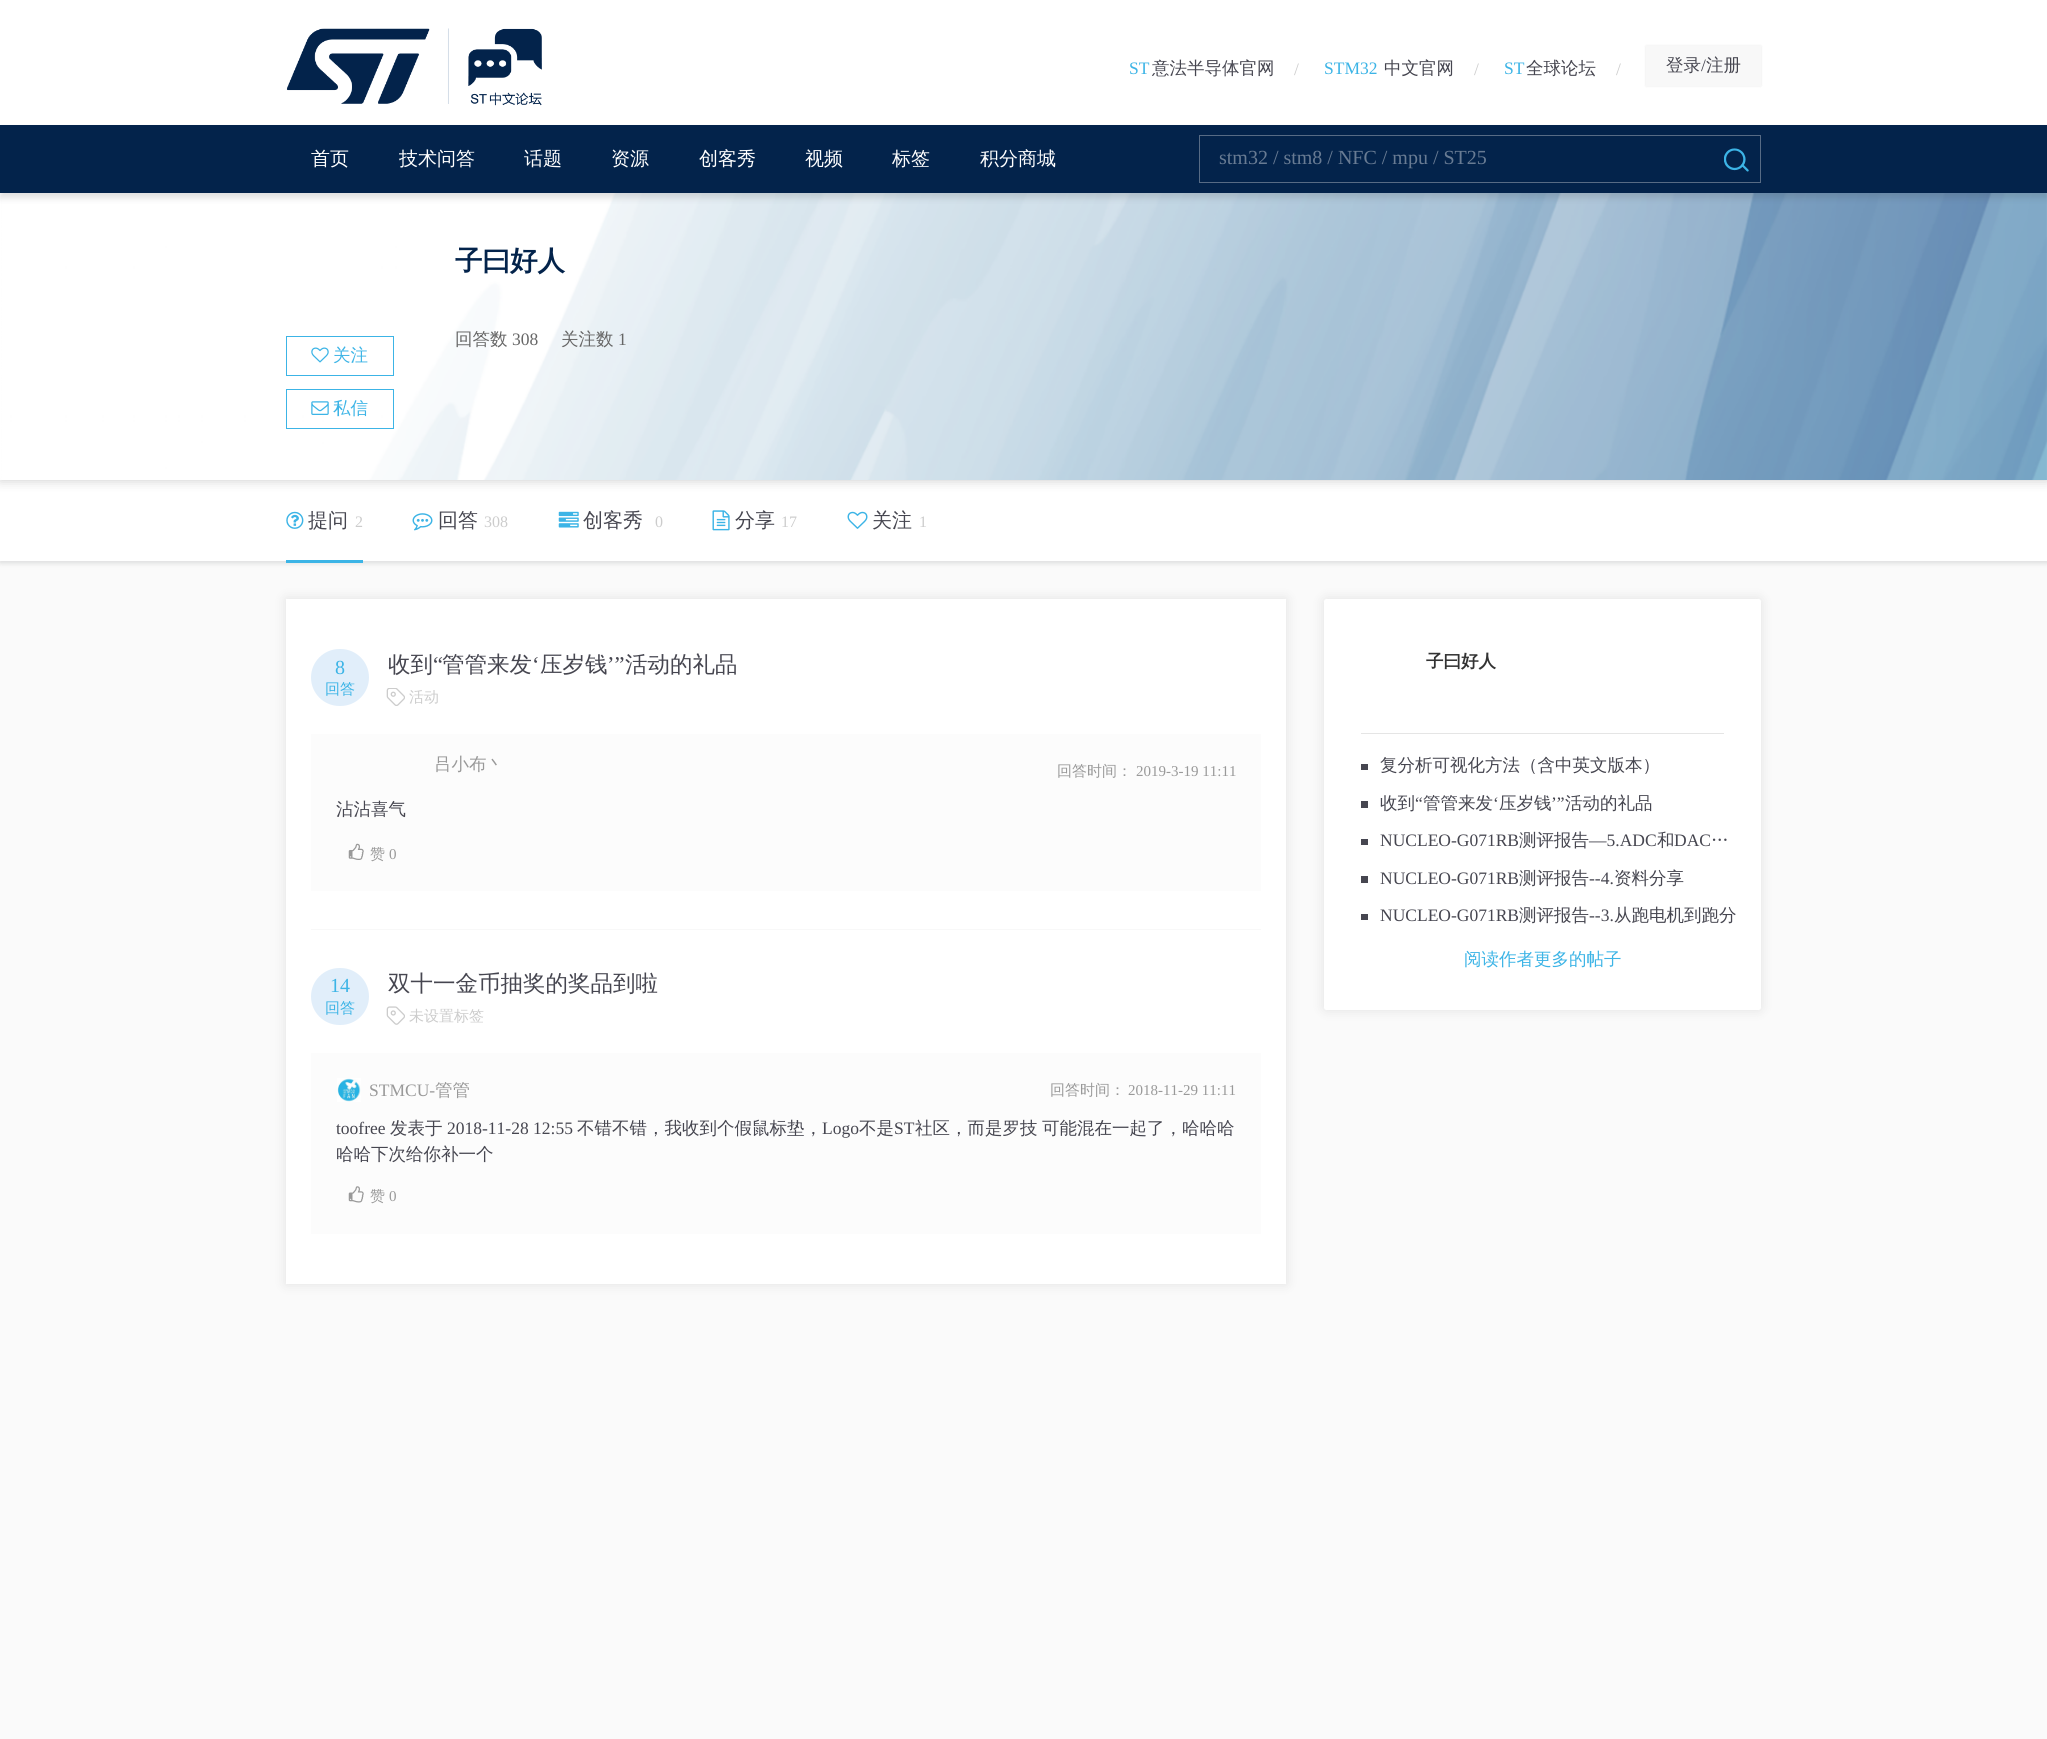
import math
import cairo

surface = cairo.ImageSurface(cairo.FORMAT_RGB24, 2047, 1739)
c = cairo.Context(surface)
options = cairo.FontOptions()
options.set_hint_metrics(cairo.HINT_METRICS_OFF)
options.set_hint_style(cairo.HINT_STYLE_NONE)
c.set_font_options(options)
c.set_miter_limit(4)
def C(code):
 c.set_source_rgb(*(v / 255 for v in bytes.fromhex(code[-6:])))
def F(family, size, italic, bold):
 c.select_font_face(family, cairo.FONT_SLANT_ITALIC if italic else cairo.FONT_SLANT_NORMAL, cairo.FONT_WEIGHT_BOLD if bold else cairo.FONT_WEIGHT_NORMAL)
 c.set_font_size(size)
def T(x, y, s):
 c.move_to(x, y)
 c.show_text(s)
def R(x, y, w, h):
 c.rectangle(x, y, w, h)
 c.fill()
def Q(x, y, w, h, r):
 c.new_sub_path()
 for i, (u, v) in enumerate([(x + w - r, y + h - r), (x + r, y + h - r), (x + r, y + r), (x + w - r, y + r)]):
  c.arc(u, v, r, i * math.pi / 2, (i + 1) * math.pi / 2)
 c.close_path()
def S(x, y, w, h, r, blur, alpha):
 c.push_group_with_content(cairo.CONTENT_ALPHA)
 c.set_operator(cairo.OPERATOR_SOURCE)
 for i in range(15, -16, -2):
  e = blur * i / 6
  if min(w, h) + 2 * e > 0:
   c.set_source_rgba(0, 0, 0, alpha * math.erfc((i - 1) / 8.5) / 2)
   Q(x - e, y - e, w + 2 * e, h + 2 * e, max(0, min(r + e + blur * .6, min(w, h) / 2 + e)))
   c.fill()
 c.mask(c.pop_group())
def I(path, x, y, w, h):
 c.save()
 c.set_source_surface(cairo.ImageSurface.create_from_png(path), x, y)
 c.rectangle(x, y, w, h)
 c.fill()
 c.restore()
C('fafafa')
c.paint()
C('ffffff')
R(0,0,2047,125)
I('1.png',286,28,256,78)
F('Liberation Serif',17.5,0,0)
C('3cb4e6')
T(1129,74,'ST')
F('WenQuanYi Zen Hei Medium',17.5,0,0)
C('464650')
T(1152,74,'意法半导体官网')
F('Liberation Serif',17.5,0,0)
C('cccccc')
T(1294,75,'/')
C('3cb4e6')
T(1324,74,'STM32')
F('WenQuanYi Zen Hei Medium',17.5,0,0)
C('464650')
T(1384,74,'中文官网')
F('Liberation Serif',17.5,0,0)
C('cccccc')
T(1474,75,'/')
C('3cb4e6')
T(1504,74,'ST')
F('WenQuanYi Zen Hei Medium',17.5,0,0)
C('464650')
T(1526,74,'全球论坛')
F('Liberation Serif',17.5,0,0)
C('cccccc')
T(1616,75,'/')
C('000000')
S(1646,46,115,40,0,1,.1)
C('f8f8f8')
R(1646,46,115,40)
F('WenQuanYi Zen Hei Medium',17.5,0,0)
C('464650')
T(1666,71,'登录')
F('Liberation Serif',17.5,0,0)
T(1701,71,'/')
F('WenQuanYi Zen Hei Medium',17.5,0,0)
T(1706,71,'注册')
C('27292b')
S(0,481,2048,82,0,2.5,.15)
C('ffffff')
R(0,480,2047,81)
c.save()
c.rectangle(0,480,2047,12)
c.clip()
C('cccccc')
S(0,193,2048,287,0,6,1)
c.restore()
I('3.png',0,193,2047,287)
C('27292b')
S(0,130,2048,68,0,3.5,.15)
C('03234b')
R(0,125,2047,68)
F('WenQuanYi Zen Hei Medium',19,0,0)
C('ffffff')
T(311,165,'首页')
T(399,165,'技术问答')
T(524,165,'话题')
T(611,165,'资源')
T(699,165,'创客秀')
T(805,165,'视频')
T(892,165,'标签')
T(980,165,'积分商城')
c.rectangle(1199.5,135.5,561,47)
C('576b85')
c.set_line_width(1)
c.stroke()
F('Liberation Serif',20,0,0)
C('687b93')
T(1219,164,'stm32 / stm8 / NFC / mpu / ST25')
I('2.png',1724,148,25,24)
F('WenQuanYi Zen Hei',27.5,0,1)
C('03234b')
T(455,270,'子曰好人')
F('WenQuanYi Zen Hei Medium',17.5,0,0)
C('666666')
T(455,345,'回答数')
F('Liberation Serif',17.5,0,0)
T(512,345,'308')
F('WenQuanYi Zen Hei Medium',17.5,0,0)
T(561,345,'关注数')
F('Liberation Serif',17.5,0,0)
T(618,345,'1')
c.rectangle(286.5,336.5,107,39)
C('3cb4e6')
c.stroke()
I('4.png',311,347,18,16)
F('WenQuanYi Zen Hei Medium',17.5,0,0)
T(333,361,'关注')
c.rectangle(286.5,389.5,107,39)
c.stroke()
I('5.png',311,401,18,14)
T(333,414,'私信')
I('6.png',286,511,18,18)
F('WenQuanYi Zen Hei Medium',20,0,0)
C('464650')
T(308,527,'提问')
F('Liberation Serif',16,0,0)
C('cccccc')
T(355,527,'2')
C('3cb4e6')
R(286,560,77,3)
I('7.png',412,513,21,18)
F('WenQuanYi Zen Hei Medium',20,0,0)
C('464650')
T(438,527,'回答')
F('Liberation Serif',16,0,0)
C('cccccc')
T(484,527,'308')
I('8.png',558,511,21,17)
F('WenQuanYi Zen Hei Medium',20,0,0)
C('464650')
T(583,527,'创客秀')
F('Liberation Serif',16,0,0)
C('cccccc')
T(655,527,'0')
I('9.png',712,510,18,21)
F('WenQuanYi Zen Hei Medium',20,0,0)
C('464650')
T(735,527,'分享')
F('Liberation Serif',16,0,0)
C('cccccc')
T(781,527,'17')
I('10.png',847,511,21,18)
F('WenQuanYi Zen Hei Medium',20,0,0)
C('464650')
T(872,527,'关注')
F('Liberation Serif',16,0,0)
C('cccccc')
T(919,527,'1')
C('000000')
S(286,599,1000,685,0,6,.1)
C('ffffff')
R(286,599,1000,685)
C('f8f8f8')
R(311,929,950,1)
C('e1eefa')
Q(311,649,58,57,28.5)
c.fill()
F('Liberation Serif',20,0,0)
C('3cb4e6')
T(335,674,'8')
F('WenQuanYi Zen Hei Medium',15,0,0)
T(325,694,'回答')
F('WenQuanYi Zen Hei Medium',22.5,0,0)
C('464650')
T(388,672,'收到')
F('Liberation Serif',22.5,0,0)
T(433,672,'“')
F('WenQuanYi Zen Hei Medium',22.5,0,0)
T(442,672,'管管来发')
F('Liberation Serif',22.5,0,0)
T(532,672,'‘')
F('WenQuanYi Zen Hei Medium',22.5,0,0)
T(540,672,'压岁钱')
F('Liberation Serif',22.5,0,0)
T(607,672,'’”')
F('WenQuanYi Zen Hei Medium',22.5,0,0)
T(625,672,'活动的礼品')
I('11.png',386,688,19,18)
F('WenQuanYi Zen Hei Medium',15,0,0)
C('cccccc')
T(409,702,'活动')
C('fcfcfc')
R(311,734,950,157)
F('WenQuanYi Zen Hei Medium',17.5,0,0)
C('999999')
T(434,770,'吕小布丶')
F('WenQuanYi Zen Hei Medium',15,0,0)
T(1057,776,'回答时间：')
F('Liberation Serif',15,0,0)
T(1136,776,'2019-3-19 11:11')
F('WenQuanYi Zen Hei Medium',17.5,0,0)
C('464650')
T(336,815,'沾沾喜气')
I('12.png',348,843,16,17)
F('WenQuanYi Zen Hei Medium',15,0,0)
C('999999')
T(370,859,'赞')
F('Liberation Serif',15,0,0)
T(389,859,'0')
C('e1eefa')
Q(311,968,58,57,28.5)
c.fill()
F('Liberation Serif',20,0,0)
C('3cb4e6')
T(330,992,'14')
F('WenQuanYi Zen Hei Medium',15,0,0)
T(325,1013,'回答')
F('WenQuanYi Zen Hei Medium',22.5,0,0)
C('464650')
T(388,991,'双十一金币抽奖的奖品到啦')
I('13.png',386,1006,19,19)
F('WenQuanYi Zen Hei Medium',15,0,0)
C('cccccc')
T(409,1021,'未设置标签')
C('fcfcfc')
R(311,1053,950,181)
I('14.png',337,1078,24,24)
F('Liberation Serif',17.5,0,0)
C('999999')
T(369,1096,'STMCU-')
F('WenQuanYi Zen Hei Medium',17.5,0,0)
T(435,1096,'管管')
F('WenQuanYi Zen Hei Medium',15,0,0)
T(1050,1095,'回答时间：')
F('Liberation Serif',15,0,0)
T(1128,1095,'2018-11-29 11:11')
F('Liberation Serif',17.5,0,0)
C('464650')
T(336,1134,'toofree')
F('WenQuanYi Zen Hei Medium',17.5,0,0)
T(390,1134,'发表于')
F('Liberation Serif',17.5,0,0)
T(447,1134,'2018-11-28 12:55')
F('WenQuanYi Zen Hei Medium',17.5,0,0)
T(577,1134,'不错不错，我收到个假鼠标垫，')
F('Liberation Serif',17.5,0,0)
T(822,1134,'Logo')
F('WenQuanYi Zen Hei Medium',17.5,0,0)
T(859,1134,'不是')
F('Liberation Serif',17.5,0,0)
T(894,1134,'ST')
F('WenQuanYi Zen Hei Medium',17.5,0,0)
T(915,1134,'社区，而是罗技')
T(1042,1134,'可能混在一起了，哈哈哈')
T(336,1160,'哈哈下次给你补一个')
I('15.png',348,1186,16,17)
F('WenQuanYi Zen Hei Medium',15,0,0)
C('999999')
T(370,1201,'赞')
F('Liberation Serif',15,0,0)
T(389,1201,'0')
C('000000')
S(1324,599,437,411,2.5,6,.1)
C('ffffff')
Q(1324,599,437,411,2.5)
c.fill()
F('WenQuanYi Zen Hei',17.5,0,1)
C('333333')
T(1426,667,'子曰好人')
C('e5e5e5')
R(1361,733,363,1)
C('464650')
R(1361,764,7,6)
F('WenQuanYi Zen Hei Medium',17.5,0,0)
T(1380,771,'复分析可视化方法（含中英文版本）')
T(1380,809,'收到')
F('Liberation Serif',17.5,0,0)
T(1415,809,'“')
F('WenQuanYi Zen Hei Medium',17.5,0,0)
T(1423,809,'管管来发')
F('Liberation Serif',17.5,0,0)
T(1493,809,'‘')
F('WenQuanYi Zen Hei Medium',17.5,0,0)
T(1499,809,'压岁钱')
F('Liberation Serif',17.5,0,0)
T(1551,809,'’”')
F('WenQuanYi Zen Hei Medium',17.5,0,0)
T(1565,809,'活动的礼品')
R(1361,801,7,7)
R(1361,839,7,6)
F('Liberation Serif',17.5,0,0)
T(1380,846,'NUCLEO-G071RB')
F('WenQuanYi Zen Hei Medium',17.5,0,0)
T(1519,846,'测评报告')
F('Liberation Serif',17.5,0,0)
T(1589,846,'—5.ADC')
F('WenQuanYi Zen Hei Medium',17.5,0,0)
T(1657,846,'和')
F('Liberation Serif',17.5,0,0)
T(1674,846,'DAC')
F('WenQuanYi Zen Hei Medium',17.5,0,0)
T(1711,846,'…')
R(1361,876,7,7)
F('Liberation Serif',17.5,0,0)
T(1380,884,'NUCLEO-G071RB')
F('WenQuanYi Zen Hei Medium',17.5,0,0)
T(1519,884,'测评报告')
F('Liberation Serif',17.5,0,0)
T(1589,884,'--4.')
F('WenQuanYi Zen Hei Medium',17.5,0,0)
T(1614,884,'资料分享')
R(1361,914,7,6)
F('Liberation Serif',17.5,0,0)
T(1380,921,'NUCLEO-G071RB')
F('WenQuanYi Zen Hei Medium',17.5,0,0)
T(1519,921,'测评报告')
F('Liberation Serif',17.5,0,0)
T(1589,921,'--3.')
F('WenQuanYi Zen Hei Medium',17.5,0,0)
T(1614,921,'从跑电机到跑分')
C('3cb4e6')
T(1464,965,'阅读作者更多的帖子')
surface.write_to_png('o.png')
